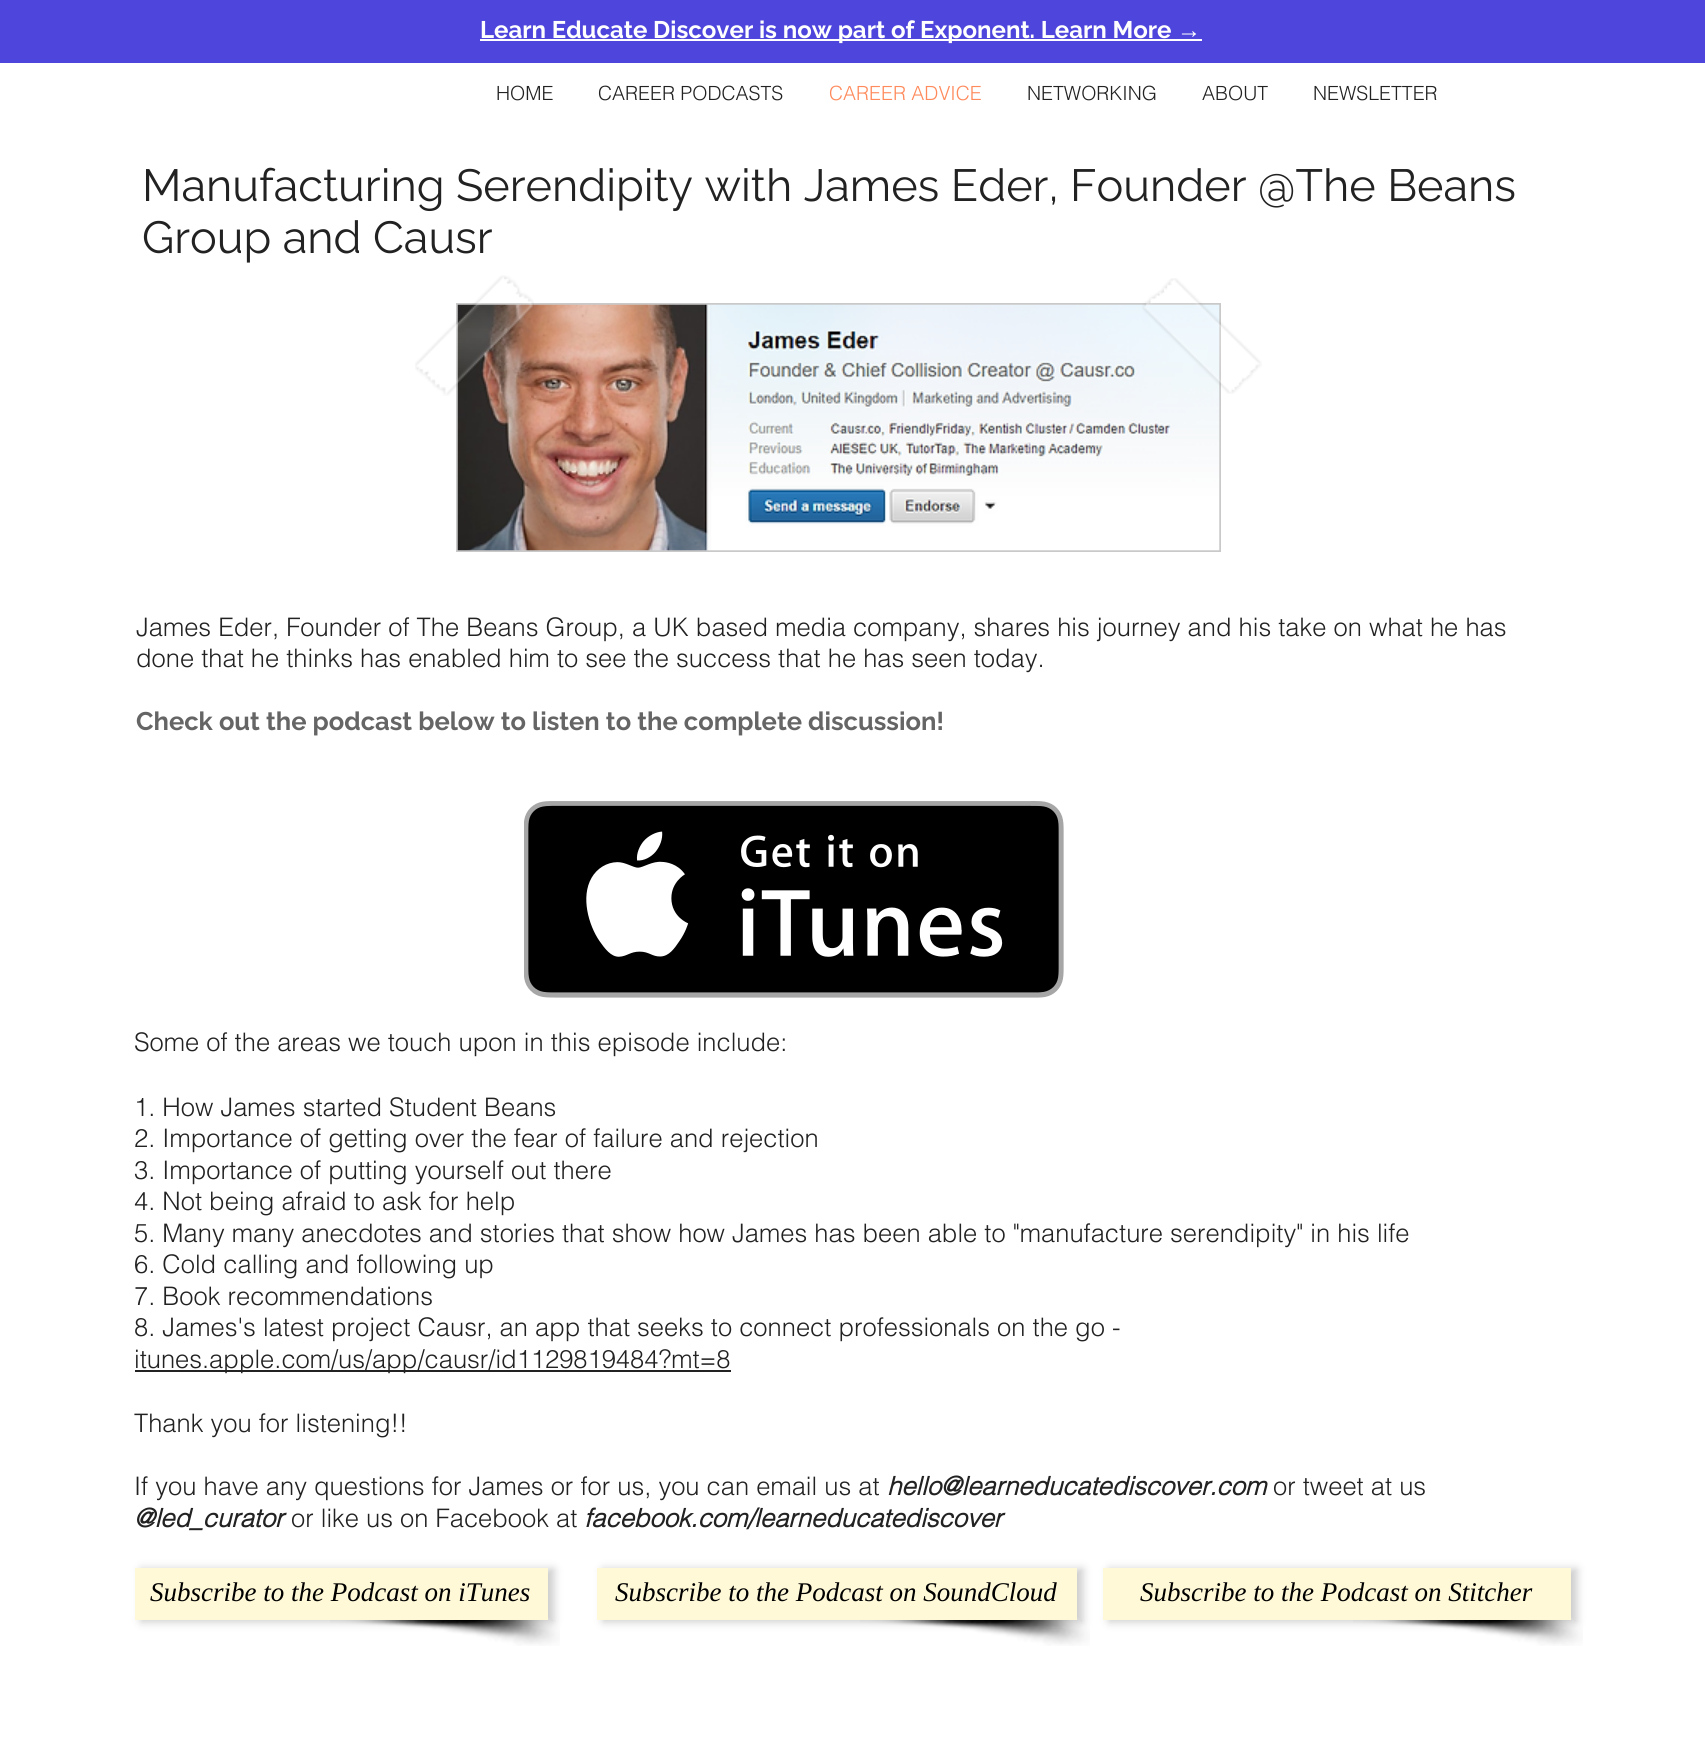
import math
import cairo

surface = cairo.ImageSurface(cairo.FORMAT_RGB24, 1705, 1760)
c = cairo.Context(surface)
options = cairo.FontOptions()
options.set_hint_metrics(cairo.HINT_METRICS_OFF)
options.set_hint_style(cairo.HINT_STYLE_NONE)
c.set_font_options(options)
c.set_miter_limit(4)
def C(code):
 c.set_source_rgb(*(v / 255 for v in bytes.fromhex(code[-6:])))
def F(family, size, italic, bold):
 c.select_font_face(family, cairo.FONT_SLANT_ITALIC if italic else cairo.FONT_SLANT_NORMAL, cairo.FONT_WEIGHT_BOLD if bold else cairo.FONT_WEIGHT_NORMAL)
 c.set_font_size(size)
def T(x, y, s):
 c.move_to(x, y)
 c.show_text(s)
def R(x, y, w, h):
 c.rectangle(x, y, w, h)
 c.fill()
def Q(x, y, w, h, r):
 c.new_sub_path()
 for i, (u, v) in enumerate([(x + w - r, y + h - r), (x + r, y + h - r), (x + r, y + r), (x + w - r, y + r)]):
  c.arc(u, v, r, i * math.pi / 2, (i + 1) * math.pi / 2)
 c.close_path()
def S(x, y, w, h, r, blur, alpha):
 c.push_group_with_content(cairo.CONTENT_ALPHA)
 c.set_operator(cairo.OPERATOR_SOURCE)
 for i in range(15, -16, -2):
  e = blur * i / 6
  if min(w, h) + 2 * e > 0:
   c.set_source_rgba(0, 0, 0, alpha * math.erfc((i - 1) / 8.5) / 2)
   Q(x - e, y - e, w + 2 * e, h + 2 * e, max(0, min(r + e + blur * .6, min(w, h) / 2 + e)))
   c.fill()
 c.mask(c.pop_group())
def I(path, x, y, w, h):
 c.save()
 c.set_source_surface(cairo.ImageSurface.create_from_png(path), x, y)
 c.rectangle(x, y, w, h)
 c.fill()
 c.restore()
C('ffffff')
c.paint()
C('4e46dc')
R(0,0,1705,63)
C('ffffff')
R(480,39,722,2)
F('Raleway',24,0,1)
T(480,38,'Learn Educate Discover is now part of Exponent. Learn More')
F('Liberation Sans',24,0,1)
T(1177,38,'→')
F('helvetica Light',19.5,0,0)
C('222222')
T(496,100,'HOME')
T(598,100,'CAREER PODCASTS')
C('ff8a5c')
T(829,100,'CAREER ADVICE')
C('222222')
T(1027,100,'NETWORKING')
T(1202,100,'ABOUT')
T(1313,100,'NEWSLETTER')
F('Raleway',45,0,0)
T(142,201,'Manufacturing Serendipity with James Eder, Founder @The Beans')
T(142,253,'Group and Causr')
c.rectangle(457,304,763,247)
C('c9c9c9')
c.stroke()
I('3.png',457,304,763,247)
I('1.png',415,275,119,121)
I('2.png',1142,278,120,116)
F('helvetica Light',25.5,0,0)
C('222222')
T(136,636,'James Eder, Founder of The Beans Group, a UK based media company, shares his journey and his take on what he has')
T(136,667,'done that he thinks has enabled him to see the success that he has seen today.')
F('Raleway',25.5,0,1)
C('656565')
T(136,730,'Check out the podcast below to listen to the complete discussion!')
I('4.png',524,801,540,197)
F('helvetica Light',25.5,0,0)
C('222222')
T(134,1051,'Some of the areas we touch upon in this episode include:')
T(134,1116,'1. How James started Student Beans')
T(134,1147,'2. Importance of getting over the fear of failure and rejection')
T(134,1179,'3. Importance of putting yourself out there')
T(134,1210,'4. Not being afraid to ask for help')
T(134,1242,'5. Many many anecdotes and stories that show how James has been able to "manufacture serendipity" in his life')
T(134,1273,'6. Cold calling and following up')
T(134,1305,'7. Book recommendations')
T(134,1336,'8. James\'s latest project Causr, an app that seeks to connect professionals on the go -')
R(135,1370,596,2)
T(134,1368,'itunes.apple.com/us/app/causr/id1129819484?mt=8')
T(134,1432,'Thank you for listening!!')
T(134,1495,'If you have any questions for James or for us, you can email us at')
F('helvetica',25.5,1,1)
T(887,1495,'hello@learneducatediscover.com')
F('helvetica Light',25.5,0,0)
T(1273,1495,'or tweet at us')
F('helvetica',25.5,1,1)
T(134,1527,'@led_curator')
F('helvetica Light',25.5,0,0)
T(291,1527,'or like us on Facebook at')
F('helvetica',25.5,1,1)
T(584,1527,'facebook.com/learneducatediscover')
I('5.png',330,1620,230,26)
C('000000')
S(141,1569,413,53,0,4.5,.2)
C('fff9d8')
R(135,1568,413,52)
F('Liberation Serif',27,1,0)
C('000000')
T(150,1601,'Subscribe to the Podcast on iTunes')
I('6.png',860,1620,230,26)
C('000000')
S(603,1569,480,53,0,4.5,.2)
C('fff9d8')
R(597,1568,480,52)
C('000000')
T(615,1601,'Subscribe to the Podcast on SoundCloud')
I('5.png',1353,1620,230,26)
C('000000')
S(1109,1569,468,53,0,4.5,.2)
C('fff9d8')
R(1103,1568,468,52)
C('000000')
T(1140,1601,'Subscribe to the Podcast on Stitcher')
surface.write_to_png('o.png')
